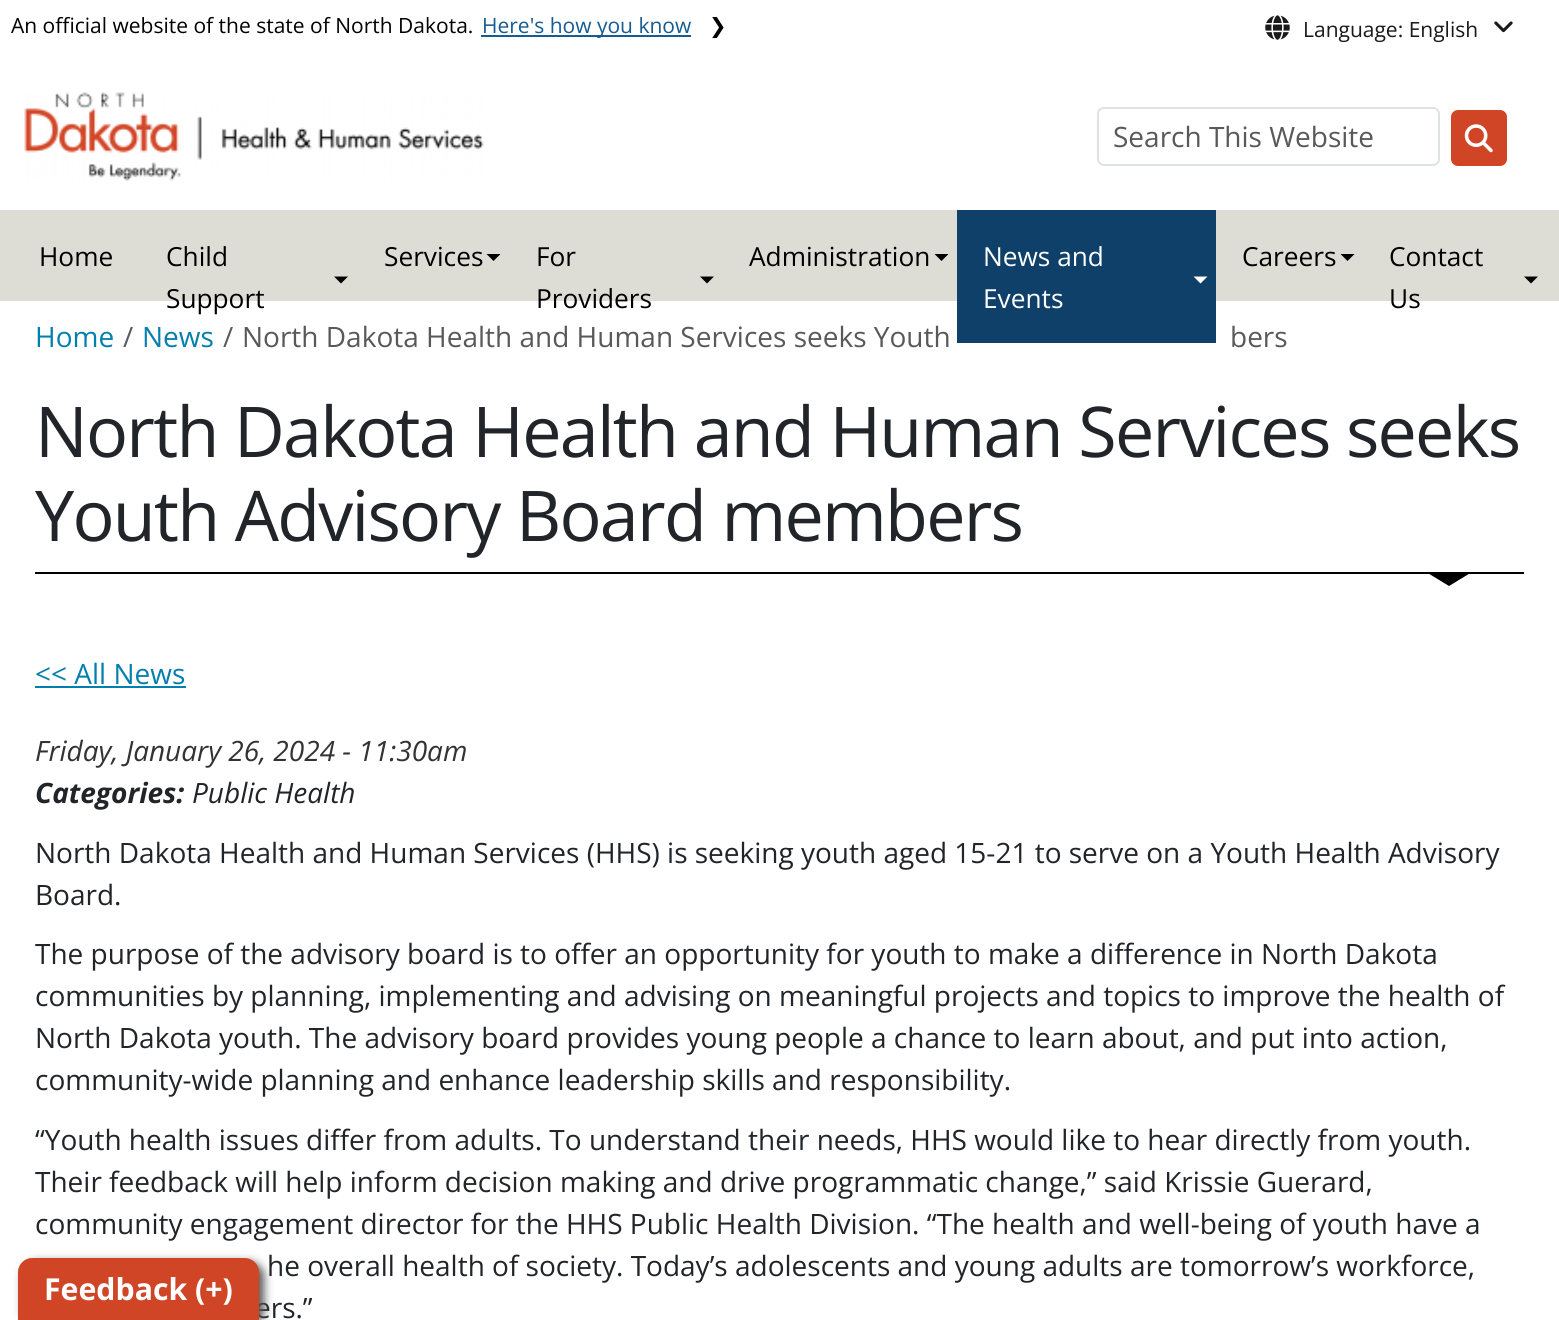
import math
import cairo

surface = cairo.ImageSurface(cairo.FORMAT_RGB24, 1559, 1320)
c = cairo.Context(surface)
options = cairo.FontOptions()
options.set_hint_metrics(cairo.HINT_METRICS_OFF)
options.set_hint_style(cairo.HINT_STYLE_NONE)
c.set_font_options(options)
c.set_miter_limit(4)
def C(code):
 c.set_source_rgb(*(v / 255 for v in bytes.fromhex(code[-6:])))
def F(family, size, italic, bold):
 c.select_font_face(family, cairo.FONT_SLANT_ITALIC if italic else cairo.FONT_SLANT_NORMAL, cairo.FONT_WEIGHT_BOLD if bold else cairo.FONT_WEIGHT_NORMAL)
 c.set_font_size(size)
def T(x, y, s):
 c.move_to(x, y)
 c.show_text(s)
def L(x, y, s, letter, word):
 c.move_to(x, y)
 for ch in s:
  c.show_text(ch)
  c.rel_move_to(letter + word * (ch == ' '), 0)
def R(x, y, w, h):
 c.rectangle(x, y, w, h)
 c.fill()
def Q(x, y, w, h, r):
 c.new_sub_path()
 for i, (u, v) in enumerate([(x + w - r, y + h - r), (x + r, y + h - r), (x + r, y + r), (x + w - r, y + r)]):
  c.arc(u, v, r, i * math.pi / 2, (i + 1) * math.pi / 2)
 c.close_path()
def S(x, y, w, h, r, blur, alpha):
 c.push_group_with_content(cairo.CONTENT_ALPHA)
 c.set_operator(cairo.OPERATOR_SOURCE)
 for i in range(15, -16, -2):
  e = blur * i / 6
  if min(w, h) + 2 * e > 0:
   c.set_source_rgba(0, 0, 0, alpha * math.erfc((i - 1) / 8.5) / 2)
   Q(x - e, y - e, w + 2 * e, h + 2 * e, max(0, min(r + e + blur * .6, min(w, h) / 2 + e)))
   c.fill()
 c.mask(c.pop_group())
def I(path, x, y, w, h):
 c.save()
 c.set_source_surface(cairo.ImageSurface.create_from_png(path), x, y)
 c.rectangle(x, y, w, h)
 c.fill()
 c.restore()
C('ffffff')
c.paint()
F('Open Sans',21,0,0)
C('000000')
T(11,33,'An official website of the state of North Dakota.')
C('165c92')
R(481,35,210,2)
T(482,33,'Here\'s how you know')
F('DejaVu Sans',21,0,0)
C('000000')
T(709,33,'❯')
I('1.png',1265,15,25,25)
F('Open Sans',21,0,0)
C('1a1a1a')
T(1303,37,'Language: English')
I('2.png',1494,21,19,12)
I('3.png',24,92,460,89)
Q(1098,108,341,57,6)
C('dee2e6')
c.stroke()
F('Open Sans',28,0,0)
C('595959')
T(1113,147,'Search This Website')
C('cf4526')
Q(1451,110,56,56,7)
c.fill()
I('4.png',1464,124,29,29)
C('ddddd5')
R(0,210,1559,91)
F('Open Sans',26.25,0,0)
C('000000')
T(39,266,'Home')
T(166,266,'Child')
c.new_path()
c.move_to(334,276.5)
c.line_to(348,276.5)
c.line_to(341,283.5)
c.close_path()
c.fill()
T(166,308,'Support')
T(384,266,'Services')
c.new_path()
c.move_to(486.5,254)
c.line_to(500.5,254)
c.line_to(493.5,261)
c.close_path()
c.fill()
T(536,266,'For')
c.new_path()
c.move_to(700,276.5)
c.line_to(714,276.5)
c.line_to(707,283.5)
c.close_path()
c.fill()
T(536,308,'Providers')
T(749,266,'Administration')
c.new_path()
c.move_to(934.5,254)
c.line_to(948.5,254)
c.line_to(941.5,261)
c.close_path()
c.fill()
C('0e406a')
R(957,210,259,133)
C('ffffff')
T(983,266,'News and')
c.new_path()
c.move_to(1193.5,276.5)
c.line_to(1207.5,276.5)
c.line_to(1200.5,283.5)
c.close_path()
c.fill()
T(983,308,'Events')
C('000000')
T(1242,266,'Careers')
c.new_path()
c.move_to(1340.5,254)
c.line_to(1354.5,254)
c.line_to(1347.5,261)
c.close_path()
c.fill()
T(1389,266,'Contact')
c.new_path()
c.move_to(1524,276.5)
c.line_to(1538,276.5)
c.line_to(1531,283.5)
c.close_path()
c.fill()
T(1389,308,'Us')
F('Open Sans',28,0,0)
C('037fae')
T(35,347,'Home')
C('595c5f')
T(123,347,'/')
C('037fae')
T(142,347,'News')
C('595c5f')
T(223,347,'/')
C('595959')
T(242,347,'North Dakota Health and Human Services seeks Youth')
T(1230,347,'bers')
C('000000')
R(35,572,1489,2)
F('Open Sans',70,0,0)
C('212529')
L(35,457,'North Dakota Health and Human Services seeks',-1.75,0)
L(35,541,'Youth Advisory Board members',-1.75,0)
C('000000')
c.new_path()
c.move_to(1426,572)
c.line_to(1472,572)
c.line_to(1449,586)
c.close_path()
c.fill()
F('Open Sans',28,0,0)
C('037fae')
T(35,684,'<< All News')
R(35,686,151,2)
F('Open Sans',28,1,0)
C('333333')
T(35,761,'Friday, January 26, 2024 - 11:30am')
F('Open Sans',28,1,1)
C('212529')
T(35,803,'Categories:')
F('Open Sans',28,1,0)
T(192,803,'Public Health')
F('Open Sans',28,0,0)
T(35,863,'North Dakota Health and Human Services (HHS) is seeking youth aged 15-21 to serve on a Youth Health Advisory')
T(35,905,'Board.')
T(35,964,'The purpose of the advisory board is to offer an opportunity for youth to make a difference in North Dakota')
T(35,1006,'communities by planning, implementing and advising on meaningful projects and topics to improve the health of')
T(35,1048,'North Dakota youth. The advisory board provides young people a chance to learn about, and put into action,')
T(35,1090,'community-wide planning and enhance leadership skills and responsibility.')
T(35,1150,'“Youth health issues differ from adults. To understand their needs, HHS would like to hear directly from youth.')
T(35,1192,'Their feedback will help inform decision making and drive programmatic change,” said Krissie Guerard,')
T(35,1234,'community engagement director for the HHS Public Health Division. “The health and well-being of youth have a')
T(267,1276,'he overall health of society. Today’s adolescents and young adults are tomorrow’s workforce,')
T(255,1318,'ers.”')
C('555555')
S(23,1262,241,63,14,4.5,1)
C('cf4526')
c.new_path()
c.move_to(32,1258)
c.line_to(245,1258)
c.curve_to(252.5,1258,259,1264.5,259,1272)
c.line_to(259,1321)
c.line_to(18,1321)
c.line_to(18,1272)
c.curve_to(18,1264.5,24.5,1258,32,1258)
c.close_path()
c.fill()
F('Open Sans',30.25,0,1)
C('ffffff')
T(44,1300,'Feedback (+)')
surface.write_to_png('o.png')
